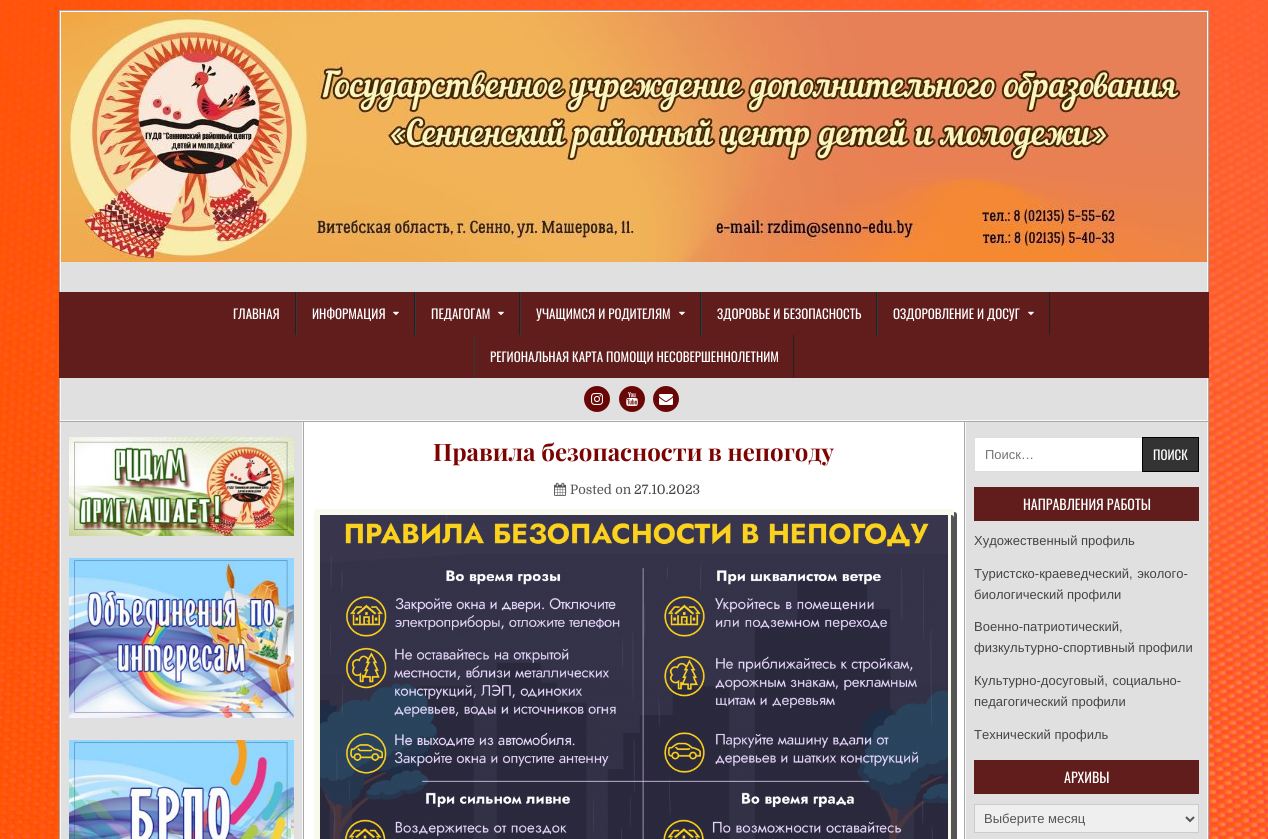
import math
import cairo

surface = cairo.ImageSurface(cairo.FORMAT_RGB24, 1268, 839)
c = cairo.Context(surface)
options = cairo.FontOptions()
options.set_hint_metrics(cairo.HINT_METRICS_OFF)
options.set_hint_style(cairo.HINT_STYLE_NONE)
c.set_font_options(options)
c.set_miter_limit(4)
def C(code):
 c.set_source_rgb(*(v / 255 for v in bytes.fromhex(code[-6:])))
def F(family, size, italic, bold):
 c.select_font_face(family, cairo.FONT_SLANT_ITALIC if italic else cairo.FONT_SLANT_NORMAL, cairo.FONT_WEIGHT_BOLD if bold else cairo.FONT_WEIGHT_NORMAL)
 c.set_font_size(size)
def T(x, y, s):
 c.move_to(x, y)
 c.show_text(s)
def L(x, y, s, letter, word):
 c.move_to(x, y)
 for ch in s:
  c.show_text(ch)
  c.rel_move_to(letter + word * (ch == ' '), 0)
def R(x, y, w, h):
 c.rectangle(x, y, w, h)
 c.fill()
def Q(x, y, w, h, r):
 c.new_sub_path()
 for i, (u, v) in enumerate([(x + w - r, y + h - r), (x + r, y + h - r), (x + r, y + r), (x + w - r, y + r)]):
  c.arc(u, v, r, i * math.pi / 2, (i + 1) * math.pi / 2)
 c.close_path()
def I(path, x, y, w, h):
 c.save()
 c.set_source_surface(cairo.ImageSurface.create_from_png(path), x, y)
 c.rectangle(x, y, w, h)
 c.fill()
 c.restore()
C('ffffff')
c.paint()
I('1.png',0,0,1268,839)
C('e0e0e0')
R(61,262,1146,30)
C('a8a8a8')
R(59,10,1150,1)
R(1208,10,1,282)
R(59,10,1,282)
C('f9f9f9')
R(60,11,1148,1)
R(1207,11,1,281)
R(60,11,1,281)
I('2.png',61,12,1146,250)
C('611c1c')
R(59,292,1150,86)
C('222222')
R(295,292,1,43)
F('Oswald',13,0,0)
C('ffffff')
T(233,319,'ГЛАВНАЯ')
C('222222')
R(414,292,1,43)
C('383838')
R(296,292,1,43)
C('ffffff')
T(312,319,'ИНФОРМАЦИЯ')
I('3.png',393,311,6,5)
C('222222')
R(519,292,1,43)
C('383838')
R(415,292,1,43)
C('ffffff')
T(431,319,'ПЕДАГОГАМ')
I('3.png',498,311,6,5)
C('222222')
R(700,292,1,43)
C('383838')
R(520,292,1,43)
C('ffffff')
T(536,319,'УЧАЩИМСЯ И РОДИТЕЛЯМ')
I('3.png',679,311,6,5)
C('222222')
R(876,292,1,43)
C('383838')
R(701,292,1,43)
C('ffffff')
T(717,319,'ЗДОРОВЬЕ И БЕЗОПАСНОСТЬ')
C('222222')
R(1049,292,1,43)
C('383838')
R(877,292,1,43)
C('ffffff')
T(893,319,'ОЗДОРОВЛЕНИЕ И ДОСУГ')
I('3.png',1028,311,6,5)
C('222222')
R(793,335,1,43)
C('383838')
R(474,335,1,43)
C('ffffff')
T(490,362,'РЕГИОНАЛЬНАЯ КАРТА ПОМОЩИ НЕСОВЕРШЕННОЛЕТНИМ')
C('e0e0e0')
R(61,378,1146,42)
C('a8a8a8')
R(1208,378,1,44)
R(59,421,1150,1)
R(59,378,1,44)
C('f9f9f9')
R(1207,378,1,43)
R(60,420,1148,1)
R(60,378,1,43)
C('690707')
c.new_path()
c.arc(597,399,13,0,2 * math.pi)
c.fill()
I('4.png',591,393,12,12)
c.arc(632,399,13,0,2 * math.pi)
c.fill()
I('5.png',626,392,12,14)
c.arc(666,399,13,0,2 * math.pi)
c.fill()
I('6.png',659,394,14,11)
I('7.png',59,422,1150,417)
I('8.png',69,437,225,99)
I('9.png',69,558,225,160)
I('10.png',69,740,225,99)
F('Playfair Display',24,0,1)
C('7d0303')
T(433,461,'Правила безопасности в непогоду')
I('11.png',554,482,13,14)
F('Domine',13,0,0)
C('555555')
T(570,494,'Posted on')
C('444444')
T(634,494,'27.10.2023')
C('555555')
c.new_path()
c.move_to(317,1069)
c.curve_to(317,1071,318,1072,320,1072)
c.line_to(954,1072)
c.curve_to(956,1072,957,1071,957,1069)
c.line_to(957,515)
c.curve_to(957,513,956,512,954,512)
c.line_to(954,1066)
c.curve_to(954,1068,953,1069,951,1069)
c.close_path()
c.fill()
Q(315.5,510.5,637,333,1.5)
C('f9f9ed')
c.set_line_width(3)
c.stroke()
Q(318.5,513.5,631,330,1.5)
c.stroke()
I('12.png',320,515,628,324)
C('555555')
c.new_path()
c.move_to(320,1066)
c.curve_to(320,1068,321,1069,323,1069)
c.line_to(951,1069)
c.curve_to(953,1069,954,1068,954,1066)
c.line_to(954,518)
c.curve_to(954,516,953,515,951,515)
c.line_to(951,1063)
c.curve_to(951,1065,950,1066,948,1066)
c.close_path()
c.fill()
C('ffffff')
R(975,438,167,33)
c.rectangle(974.5,437.5,224,34)
C('dddddd')
c.set_line_width(1)
c.stroke()
F('Liberation Sans',13,0,0)
C('757575')
T(985,459,'Поиск…')
C('333333')
c.rectangle(1142.5,437.5,56,34)
c.fill_preserve()
C('000000')
c.stroke()
F('Oswald',13,0,0)
C('ffffff')
T(1153,460,'ПОИСК')
C('611c1c')
R(974,487,225,34)
F('Oswald',14,0,0)
C('ffffff')
T(1023,510,'НАПРАВЛЕНИЯ РАБОТЫ')
F('Liberation Sans',13,0,0)
C('444444')
T(974,545,'Художественный профиль')
L(974,578,'Туристско-краеведческий, эколого-',0,1)
T(974,599,'биологический профили')
T(974,631,'Военно-патриотический,')
T(974,652,'физкультурно-спортивный профили')
L(974,685,'Культурно-досуговый, социально-',0,1)
T(974,706,'педагогический профили')
T(974,739,'Технический профиль')
C('611c1c')
R(974,760,225,34)
F('Oswald',14,0,0)
C('ffffff')
T(1064,783,'АРХИВЫ')
C('efefef')
c.rectangle(974.5,804.5,224,28)
c.fill_preserve()
C('cccccc')
c.stroke()
c.new_path()
c.move_to(1186,817)
c.line_to(1190,821)
c.line_to(1194,817)
C('555555')
c.set_line_width(2)
c.stroke()
F('Liberation Sans',13,0,0)
T(984,823,'Выберите месяц')
surface.write_to_png('o.png')
